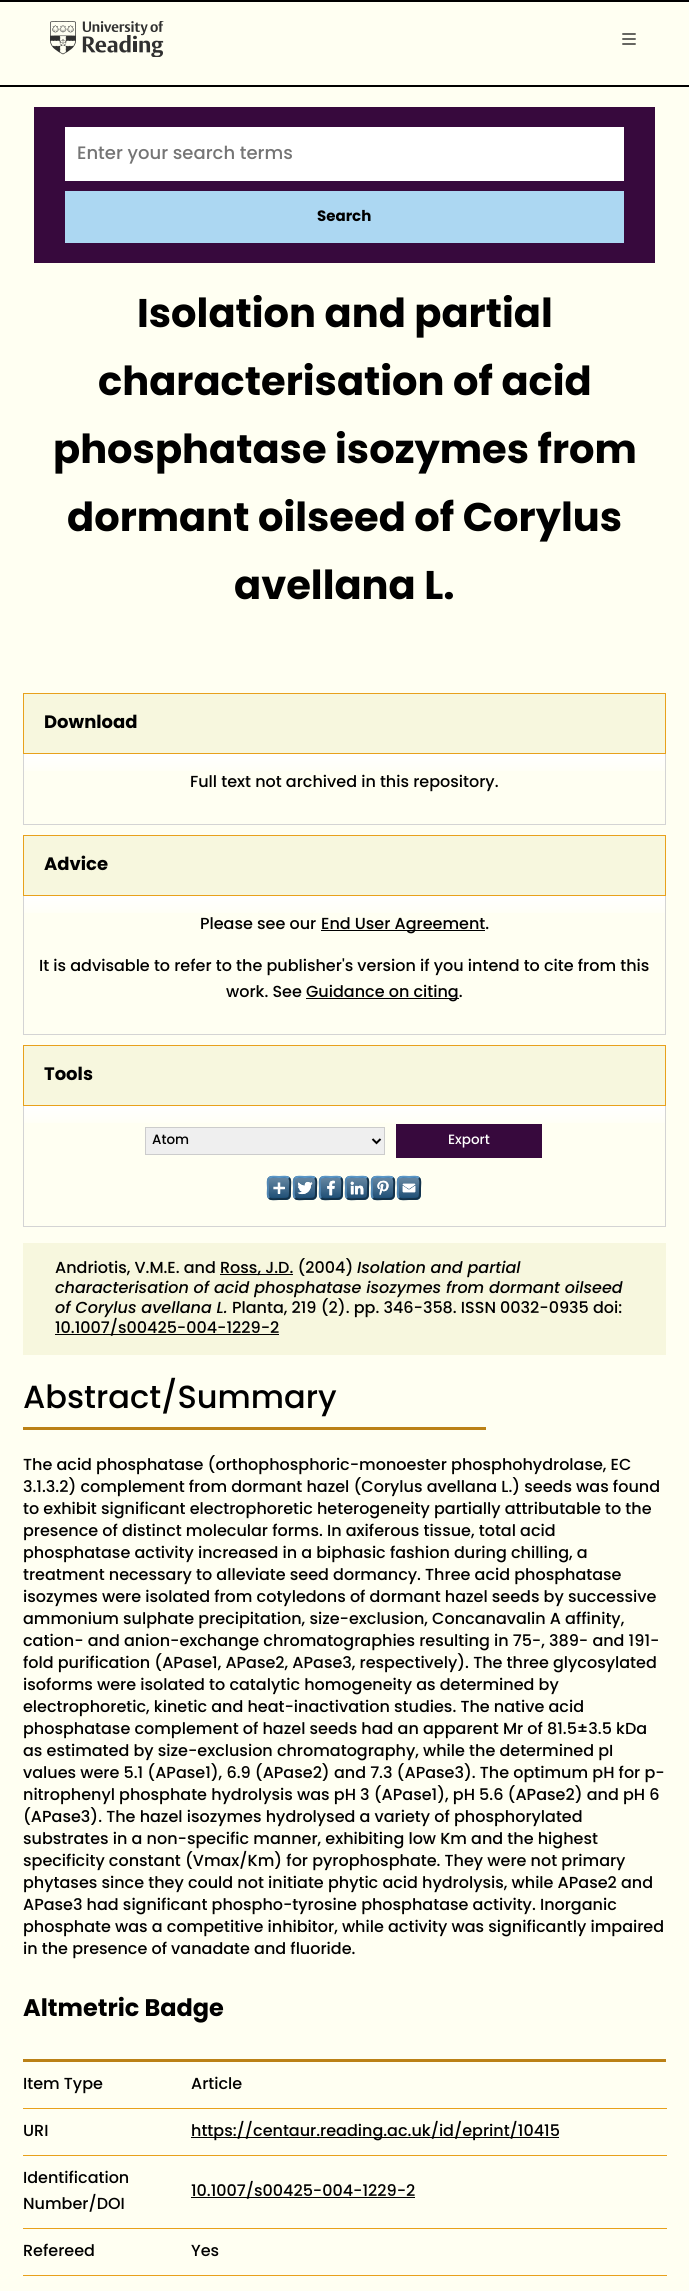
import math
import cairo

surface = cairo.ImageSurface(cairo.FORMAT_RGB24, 689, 2291)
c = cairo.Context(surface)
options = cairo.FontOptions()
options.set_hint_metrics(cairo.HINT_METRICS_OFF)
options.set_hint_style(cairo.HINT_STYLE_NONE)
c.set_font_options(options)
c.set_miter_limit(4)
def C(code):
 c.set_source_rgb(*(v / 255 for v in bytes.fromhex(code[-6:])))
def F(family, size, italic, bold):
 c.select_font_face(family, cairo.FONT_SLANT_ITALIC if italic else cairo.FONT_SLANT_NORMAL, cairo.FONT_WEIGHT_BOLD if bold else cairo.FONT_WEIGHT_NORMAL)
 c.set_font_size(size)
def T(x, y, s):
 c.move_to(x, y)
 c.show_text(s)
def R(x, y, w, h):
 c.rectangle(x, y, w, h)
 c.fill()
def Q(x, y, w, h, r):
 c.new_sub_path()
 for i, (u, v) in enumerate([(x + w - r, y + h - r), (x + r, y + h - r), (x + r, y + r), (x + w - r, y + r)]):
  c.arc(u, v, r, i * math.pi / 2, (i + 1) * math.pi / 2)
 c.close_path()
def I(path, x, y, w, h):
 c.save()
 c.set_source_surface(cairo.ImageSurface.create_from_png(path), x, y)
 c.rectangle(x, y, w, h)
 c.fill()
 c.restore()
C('fffff2')
c.paint()
C('000000')
R(0,0,689,2)
R(0,85,689,2)
I('1.png',50,21,114,36)
I('2.png',622,33,14,12)
C('37093d')
R(34,107,621,156)
C('ffffff')
R(65,127,559,54)
F('Poppins Medium',18,0,0)
C('757575')
T(77,159,'Enter your search terms')
C('acd7f2')
R(65,191,559,52)
F('Poppins',15,0,1)
C('000000')
T(317,221,'Search')
F('Poppins',40,0,1)
T(137,327,'Isolation and partial')
T(98,395,'characterisation of acid')
T(53,463,'phosphatase isozymes from')
T(67,531,'dormant oilseed of Corylus')
T(234,599,'avellana L.')
C('f7f7de')
c.rectangle(23.5,693.5,642,60)
c.fill_preserve()
C('e8a11c')
c.set_line_width(1)
c.stroke()
F('Poppins',18,0,1)
C('000000')
T(44,728,'Download')
I('3.png',24,754,641,17)
C('d4d4d4')
R(665,754,1,71)
R(23,824,643,1)
R(23,754,1,71)
F('Poppins Medium',16,0,0)
C('000000')
T(190,787,'Full text not archived in this repository.')
C('f7f7de')
c.rectangle(23.5,835.5,642,60)
c.fill_preserve()
C('e8a11c')
c.stroke()
F('Poppins',18,0,1)
C('000000')
T(44,870,'Advice')
I('3.png',24,896,641,17)
C('d4d4d4')
R(665,896,1,139)
R(23,1034,643,1)
R(23,896,1,139)
F('Poppins Medium',16,0,0)
C('000000')
T(200,929,'Please see our')
R(321,930,164,1)
T(321,929,'End User Agreement.')
T(39,971,'It is advisable to refer to the publisher\'s version if you intend to cite from this')
T(226,997,'work. See')
R(306,998,153,1)
T(306,997,'Guidance on citing.')
C('f7f7de')
c.rectangle(23.5,1045.5,642,60)
c.fill_preserve()
C('e8a11c')
c.stroke()
F('Poppins',18,0,1)
C('000000')
T(44,1080,'Tools')
I('3.png',24,1106,641,17)
C('d4d4d4')
R(665,1106,1,121)
R(23,1226,643,1)
R(23,1106,1,121)
C('efefef')
c.rectangle(145.5,1127.5,239,27)
c.fill_preserve()
C('cccccc')
c.stroke()
c.new_path()
c.move_to(372.5,1139)
c.line_to(376.5,1143)
c.line_to(380.5,1139)
C('000000')
c.set_line_width(2)
c.stroke()
F('Poppins Medium',13.5,0,0)
T(152,1144,'Atom')
C('37093d')
R(396,1124,146,34)
C('ffffff')
T(448,1144,'Export')
C('1f4f76')
Q(267,1176,24,24,5)
c.fill()
I('4.png',267,1178,24,19)
c.new_path()
c.move_to(269,1178)
c.curve_to(271,1176,276.5,1177,279,1177)
c.curve_to(281.5,1177,287,1176,289,1178)
C('5b97c7')
c.stroke()
C('1f4f76')
Q(293,1176,24,24,5)
c.fill()
I('5.png',293,1178,24,19)
c.new_path()
c.move_to(295,1178)
c.curve_to(297,1176,302.5,1177,305,1177)
c.curve_to(307.5,1177,313,1176,315,1178)
C('5b97c7')
c.stroke()
C('1f4f76')
Q(319,1176,24,24,5)
c.fill()
I('6.png',319,1178,24,19)
c.new_path()
c.move_to(321,1178)
c.curve_to(323,1176,328.5,1177,331,1177)
c.curve_to(333.5,1177,339,1176,341,1178)
C('5b97c7')
c.stroke()
C('1f4f76')
Q(345,1176,24,24,5)
c.fill()
I('7.png',345,1178,24,19)
c.new_path()
c.move_to(347,1178)
c.curve_to(349,1176,354.5,1177,357,1177)
c.curve_to(359.5,1177,365,1176,367,1178)
C('5b97c7')
c.stroke()
C('1f4f76')
Q(371,1176,24,24,5)
c.fill()
I('8.png',371,1178,24,19)
c.new_path()
c.move_to(373,1178)
c.curve_to(375,1176,380.5,1177,383,1177)
c.curve_to(385.5,1177,391,1176,393,1178)
C('5b97c7')
c.stroke()
C('1f4f76')
Q(397,1176,24,24,5)
c.fill()
I('13.png',397,1178,24,19)
c.new_path()
c.move_to(399,1178)
c.curve_to(401,1176,406.5,1177,409,1177)
c.curve_to(411.5,1177,417,1176,419,1178)
C('5b97c7')
c.stroke()
c.new_path()
c.move_to(289,1178)
c.curve_to(291,1180,290,1185.5,290,1188)
c.curve_to(290,1199.5,290.5,1199,279,1199)
c.curve_to(276.5,1199,271,1200,269,1198)
C('13324a')
c.stroke()
c.new_path()
c.move_to(269,1198)
c.curve_to(267,1196,268,1190.5,268,1188)
c.curve_to(268,1185.5,267,1180,269,1178)
C('5287b3')
c.stroke()
c.new_path()
c.move_to(315,1178)
c.curve_to(317,1180,316,1185.5,316,1188)
c.curve_to(316,1199.5,316.5,1199,305,1199)
c.curve_to(302.5,1199,297,1200,295,1198)
C('13324a')
c.stroke()
c.new_path()
c.move_to(295,1198)
c.curve_to(293,1196,294,1190.5,294,1188)
c.curve_to(294,1185.5,293,1180,295,1178)
C('5287b3')
c.stroke()
c.new_path()
c.move_to(341,1178)
c.curve_to(343,1180,342,1185.5,342,1188)
c.curve_to(342,1199.5,342.5,1199,331,1199)
c.curve_to(328.5,1199,323,1200,321,1198)
C('13324a')
c.stroke()
c.new_path()
c.move_to(321,1198)
c.curve_to(319,1196,320,1190.5,320,1188)
c.curve_to(320,1185.5,319,1180,321,1178)
C('5287b3')
c.stroke()
c.new_path()
c.move_to(367,1178)
c.curve_to(369,1180,368,1185.5,368,1188)
c.curve_to(368,1199.5,368.5,1199,357,1199)
c.curve_to(354.5,1199,349,1200,347,1198)
C('13324a')
c.stroke()
c.new_path()
c.move_to(347,1198)
c.curve_to(345,1196,346,1190.5,346,1188)
c.curve_to(346,1185.5,345,1180,347,1178)
C('5287b3')
c.stroke()
c.new_path()
c.move_to(393,1178)
c.curve_to(395,1180,394,1185.5,394,1188)
c.curve_to(394,1199.5,394.5,1199,383,1199)
c.curve_to(380.5,1199,375,1200,373,1198)
C('13324a')
c.stroke()
c.new_path()
c.move_to(373,1198)
c.curve_to(371,1196,372,1190.5,372,1188)
c.curve_to(372,1185.5,371,1180,373,1178)
C('5287b3')
c.stroke()
c.new_path()
c.move_to(419,1178)
c.curve_to(421,1180,420,1185.5,420,1188)
c.curve_to(420,1199.5,420.5,1199,409,1199)
c.curve_to(406.5,1199,401,1200,399,1198)
C('13324a')
c.stroke()
c.new_path()
c.move_to(399,1198)
c.curve_to(397,1196,398,1190.5,398,1188)
c.curve_to(398,1185.5,397,1180,399,1178)
C('5287b3')
c.stroke()
I('9.png',297,1181,16,14)
I('10.png',327,1180,8,16)
I('11.png',350,1181,14,14)
I('12.png',377,1180,12,16)
C('ffffff')
R(284,1187,1,2)
I('14.png',402,1183,14,10)
R(278,1193,2,1)
C('f7f7de')
R(23,1243,643,112)
F('Poppins Medium',16,0,0)
C('000000')
T(55,1273,'Andriotis, V.M.E. and')
R(220,1274,73,1)
T(220,1273,'Ross, J.D. (2004)')
F('Poppins Medium',16,1,0)
T(357,1273,'Isolation and partial')
T(55,1293,'characterisation of acid phosphatase isozymes from dormant oilseed')
T(55,1313,'of Corylus avellana L.')
F('Poppins Medium',16,0,0)
T(232,1313,'Planta, 219 (2). pp. 346-358. ISSN 0032-0935 doi:')
R(55,1334,224,1)
T(55,1333,'10.1007/s00425-004-1229-2')
C('bb8116')
R(23,1427,463,3)
F('Poppins Medium',32,0,0)
C('000000')
T(23,1408,'Abstract/Summary')
F('Poppins Medium',16,0,0)
T(23,1470,'The acid phosphatase (orthophosphoric-monoester phosphohydrolase, EC')
T(23,1492,'3.1.3.2) complement from dormant hazel (Corylus avellana L.) seeds was found')
T(23,1514,'to exhibit significant electrophoretic heterogeneity partially attributable to the')
T(23,1536,'presence of distinct molecular forms. In axiferous tissue, total acid')
T(23,1558,'phosphatase activity increased in a biphasic fashion during chilling, a')
T(23,1580,'treatment necessary to alleviate seed dormancy. Three acid phosphatase')
T(23,1602,'isozymes were isolated from cotyledons of dormant hazel seeds by successive')
T(23,1624,'ammonium sulphate precipitation, size-exclusion, Concanavalin A affinity,')
T(23,1646,'cation- and anion-exchange chromatographies resulting in 75-, 389- and 191-')
T(23,1668,'fold purification (APase1, APase2, APase3, respectively). The three glycosylated')
T(23,1690,'isoforms were isolated to catalytic homogeneity as determined by')
T(23,1712,'electrophoretic, kinetic and heat-inactivation studies. The native acid')
T(23,1734,'phosphatase complement of hazel seeds had an apparent Mr of 81.5±3.5 kDa')
T(23,1756,'as estimated by size-exclusion chromatography, while the determined pI')
T(23,1778,'values were 5.1 (APase1), 6.9 (APase2) and 7.3 (APase3). The optimum pH for p-')
T(23,1800,'nitrophenyl phosphate hydrolysis was pH 3 (APase1), pH 5.6 (APase2) and pH 6')
T(23,1822,'(APase3). The hazel isozymes hydrolysed a variety of phosphorylated')
T(23,1844,'substrates in a non-specific manner, exhibiting low Km and the highest')
T(23,1866,'specificity constant (Vmax/Km) for pyrophosphate. They were not primary')
T(23,1888,'phytases since they could not initiate phytic acid hydrolysis, while APase2 and')
T(23,1910,'APase3 had significant phospho-tyrosine phosphatase activity. Inorganic')
T(23,1932,'phosphate was a competitive inhibitor, while activity was significantly impaired')
T(23,1954,'in the presence of vanadate and fluoride.')
F('Poppins',24,0,1)
T(23,2016,'Altmetric Badge')
C('bb8116')
R(23,2059,643,3)
C('e8a11c')
R(23,2108,644,1)
F('Poppins Medium',16,0,0)
C('000000')
T(23,2089,'Item Type')
T(191,2089,'Article')
C('e8a11c')
R(23,2155,644,1)
C('000000')
T(23,2136,'URI')
R(191,2137,368,1)
T(191,2136,'https://centaur.reading.ac.uk/id/eprint/10415')
C('e8a11c')
R(23,2228,644,1)
C('000000')
T(23,2183,'Identification')
T(23,2209,'Number/DOI')
R(191,2197,224,1)
T(191,2196,'10.1007/s00425-004-1229-2')
C('e8a11c')
R(23,2275,644,1)
C('000000')
T(23,2256,'Refereed')
T(191,2256,'Yes')
surface.write_to_png('o.png')
